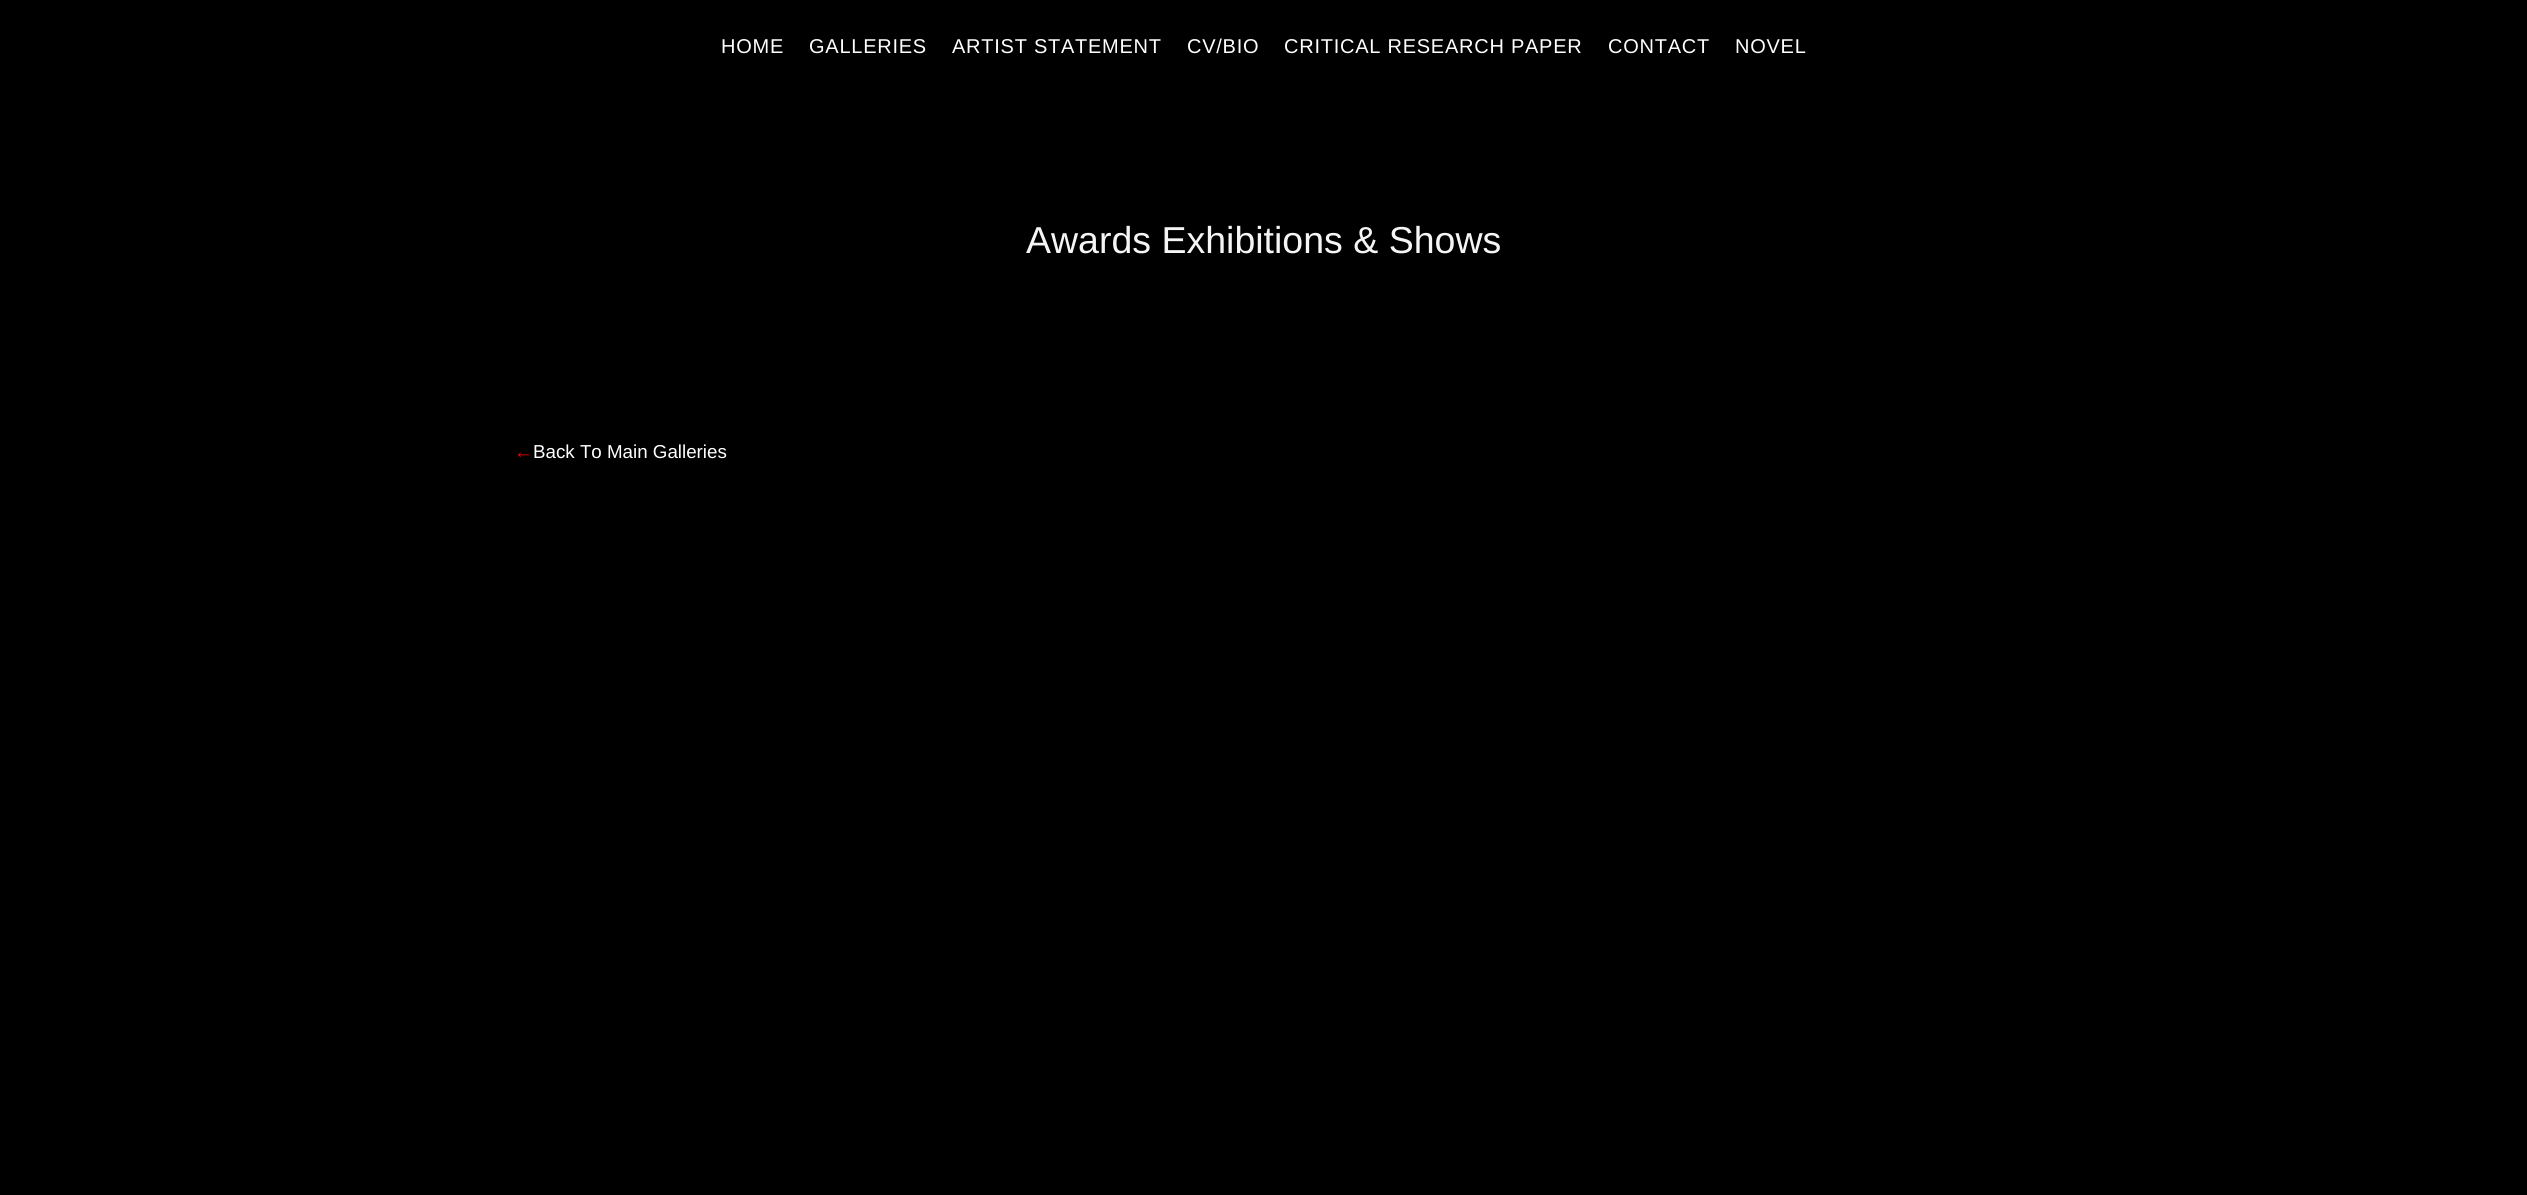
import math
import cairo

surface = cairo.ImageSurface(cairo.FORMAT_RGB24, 2527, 1195)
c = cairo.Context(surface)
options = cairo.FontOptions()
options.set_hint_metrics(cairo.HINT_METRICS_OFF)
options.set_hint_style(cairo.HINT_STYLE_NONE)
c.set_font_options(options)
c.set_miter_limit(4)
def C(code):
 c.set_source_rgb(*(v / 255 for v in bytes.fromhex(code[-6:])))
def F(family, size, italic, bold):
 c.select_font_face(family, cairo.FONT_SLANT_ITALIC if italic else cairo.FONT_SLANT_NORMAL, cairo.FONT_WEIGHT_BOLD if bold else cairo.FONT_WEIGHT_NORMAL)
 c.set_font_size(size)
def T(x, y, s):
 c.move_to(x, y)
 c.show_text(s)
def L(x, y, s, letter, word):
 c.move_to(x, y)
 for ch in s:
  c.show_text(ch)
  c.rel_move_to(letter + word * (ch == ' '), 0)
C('000000')
c.paint()
F('Liberation Sans',20,0,0)
C('ffffff')
L(721,53,'HOME',.75,0)
L(809,53,'GALLERIES',.75,0)
L(952,53,'ARTIST STATEMENT',.75,0)
L(1187,53,'CV/BIO',.75,0)
L(1284,53,'CRITICAL RESEARCH PAPER',.75,0)
L(1608,53,'CONTACT',.75,0)
L(1735,53,'NOVEL',.75,0)
F('Liberation Sans',37.5,0,0)
C('f5f5f5')
T(1026,253,'Awards Exhibitions & Shows')
F('Liberation Sans',18.75,0,0)
C('ff0000')
T(514,458,'←')
C('ffffff')
T(533,458,'Back To Main Galleries')
surface.write_to_png('o.png')
